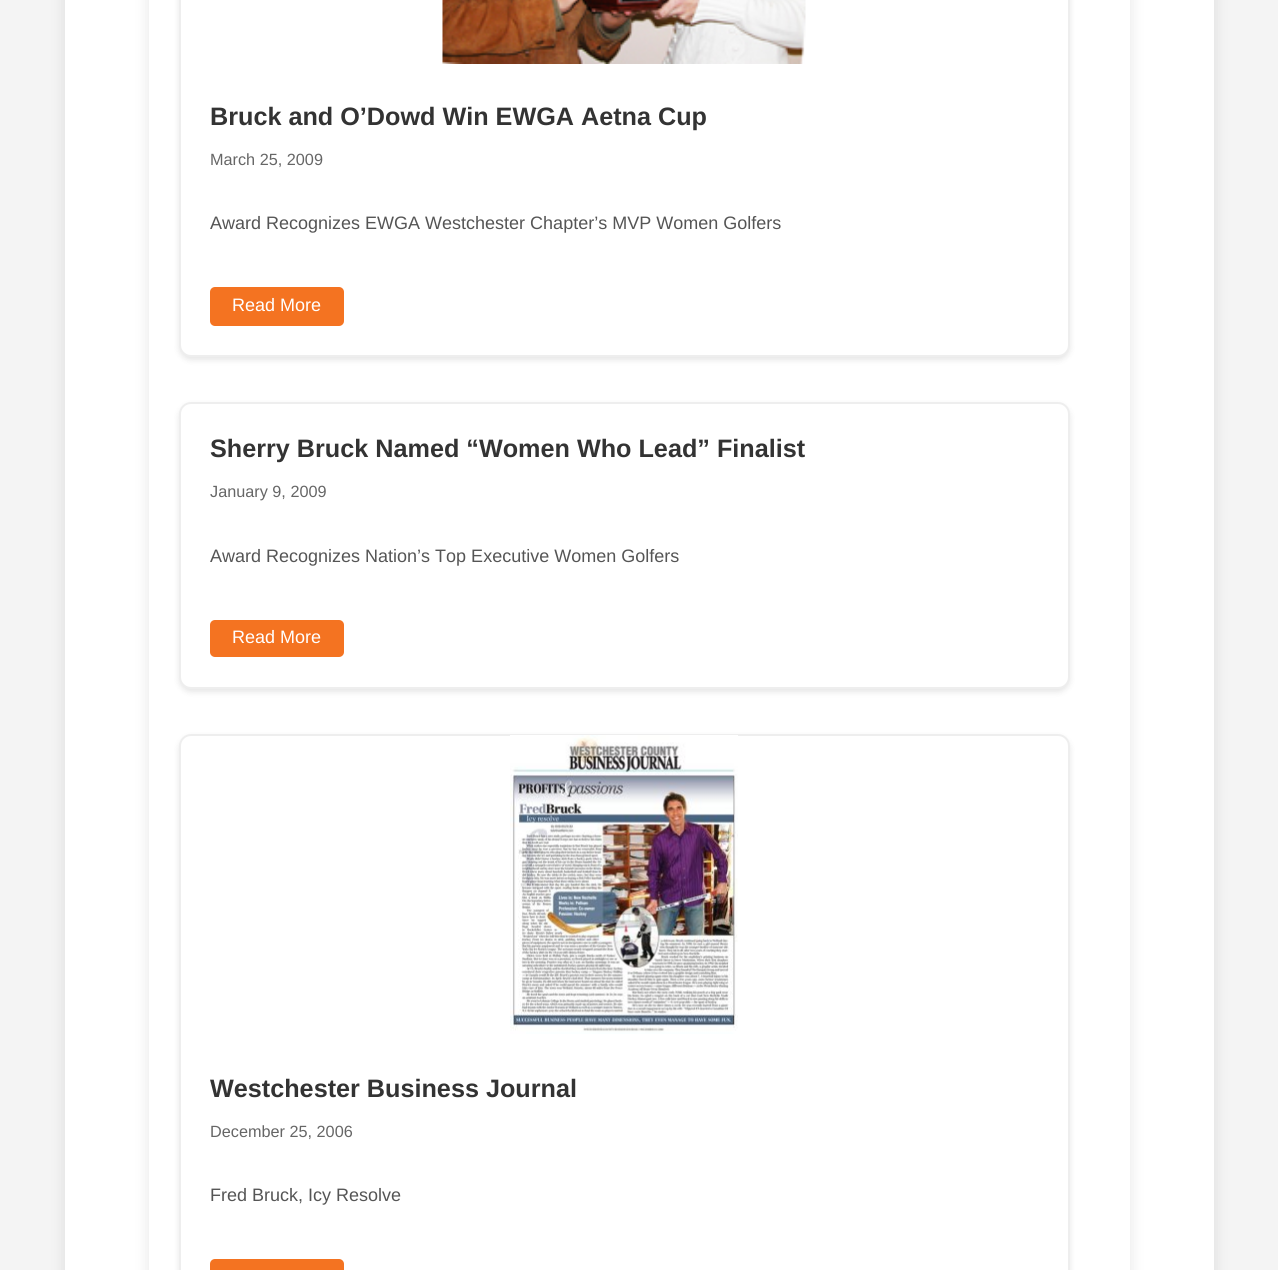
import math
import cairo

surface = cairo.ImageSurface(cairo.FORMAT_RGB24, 1278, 1270)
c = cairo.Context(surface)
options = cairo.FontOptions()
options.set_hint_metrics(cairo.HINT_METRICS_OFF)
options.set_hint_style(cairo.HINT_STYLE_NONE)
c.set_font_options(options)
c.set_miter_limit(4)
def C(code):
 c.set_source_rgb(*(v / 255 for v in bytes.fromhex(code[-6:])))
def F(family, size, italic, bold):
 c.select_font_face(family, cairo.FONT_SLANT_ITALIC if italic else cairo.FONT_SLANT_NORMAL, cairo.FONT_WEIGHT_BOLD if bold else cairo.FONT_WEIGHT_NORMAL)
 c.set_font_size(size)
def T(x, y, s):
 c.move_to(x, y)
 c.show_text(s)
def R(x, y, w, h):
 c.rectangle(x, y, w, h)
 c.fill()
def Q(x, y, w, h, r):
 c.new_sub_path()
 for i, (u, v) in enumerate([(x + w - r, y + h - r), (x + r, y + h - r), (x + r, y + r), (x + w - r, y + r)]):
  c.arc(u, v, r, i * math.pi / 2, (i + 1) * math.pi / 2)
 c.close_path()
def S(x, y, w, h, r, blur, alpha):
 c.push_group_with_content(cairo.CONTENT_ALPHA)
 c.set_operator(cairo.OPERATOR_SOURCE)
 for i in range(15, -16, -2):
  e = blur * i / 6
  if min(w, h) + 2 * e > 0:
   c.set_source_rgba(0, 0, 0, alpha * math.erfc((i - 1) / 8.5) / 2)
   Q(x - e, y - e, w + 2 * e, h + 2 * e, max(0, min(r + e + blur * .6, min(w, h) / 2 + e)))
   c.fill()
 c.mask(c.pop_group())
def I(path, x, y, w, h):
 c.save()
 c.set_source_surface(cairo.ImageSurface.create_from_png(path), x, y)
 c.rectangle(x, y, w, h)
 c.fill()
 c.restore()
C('f4f4f4')
c.paint()
C('000000')
S(65,-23,1149,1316,0,7.5,.1)
C('ffffff')
R(65,0,1149,1270)
C('000000')
S(149,-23,981,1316,0,7.5,.1)
C('ffffff')
R(149,0,981,1270)
C('000000')
S(179,-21,891,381,12,3,.1)
C('ffffff')
Q(180,-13,889,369,11)
c.fill_preserve()
C('eeeeee')
c.stroke()
I('1.png',442,0,364,64)
F('Liberation Sans',25.2,0,1)
C('333333')
T(210,125,'Bruck and O’Dowd Win EWGA Aetna Cup')
F('Liberation Sans',16.25,0,0)
C('666666')
T(210,165,'March 25, 2009')
F('Liberation Sans',18,0,0)
C('555555')
T(210,229,'Award Recognizes EWGA Westchester Chapter’s MVP Women Golfers')
C('f47321')
Q(210,287,134,39,5)
c.fill()
C('ffffff')
T(232,311,'Read More')
C('000000')
S(179,405,891,287,12,3,.1)
C('ffffff')
Q(180,403,889,285,11)
c.fill_preserve()
C('eeeeee')
c.stroke()
F('Liberation Sans',25.2,0,1)
C('333333')
T(210,457,'Sherry Bruck Named “Women Who Lead” Finalist')
F('Liberation Sans',16.25,0,0)
C('666666')
T(210,497,'January 9, 2009')
F('Liberation Sans',18,0,0)
C('555555')
T(210,562,'Award Recognizes Nation’s Top Executive Women Golfers')
C('f47321')
Q(210,620,134,37,5)
c.fill()
C('ffffff')
T(232,643,'Read More')
C('000000')
S(179,737,891,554,12,3,.1)
C('ffffff')
Q(180,735,889,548,11)
c.fill_preserve()
C('eeeeee')
c.stroke()
I('2.png',510,735,228,299)
F('Liberation Sans',25.2,0,1)
C('333333')
T(210,1097,'Westchester Business Journal')
F('Liberation Sans',16.25,0,0)
C('666666')
T(210,1137,'December 25, 2006')
F('Liberation Sans',18,0,0)
C('555555')
T(210,1201,'Fred Bruck, Icy Resolve')
C('f47321')
Q(210,1259,134,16,5)
c.fill()
surface.write_to_png('o.png')
